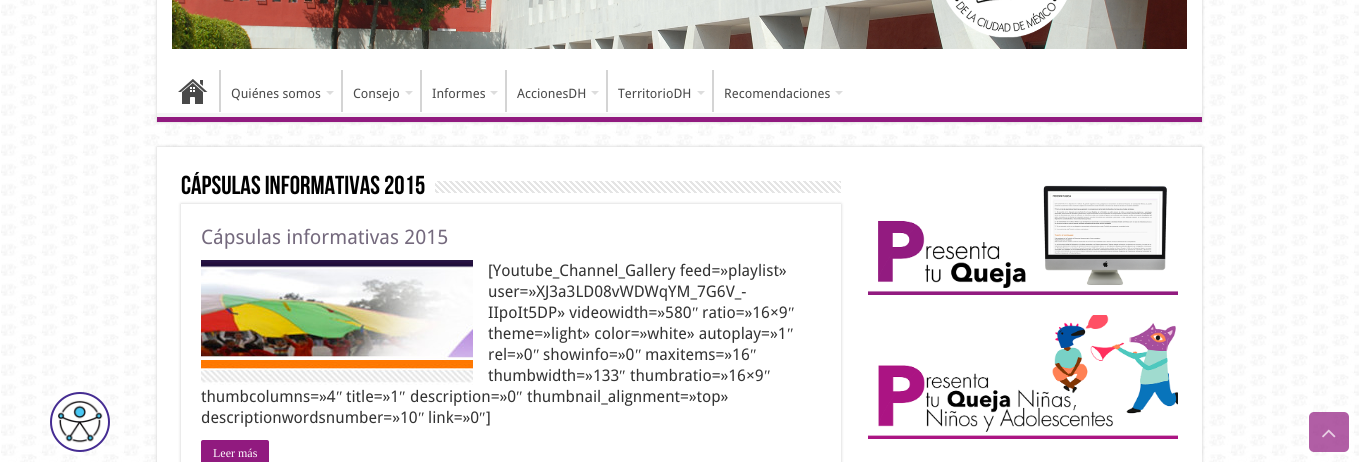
import math
import cairo

surface = cairo.ImageSurface(cairo.FORMAT_RGB24, 1359, 462)
c = cairo.Context(surface)
options = cairo.FontOptions()
options.set_hint_metrics(cairo.HINT_METRICS_OFF)
options.set_hint_style(cairo.HINT_STYLE_NONE)
c.set_font_options(options)
c.set_miter_limit(4)
def C(code):
 c.set_source_rgb(*(v / 255 for v in bytes.fromhex(code[-6:])))
def F(family, size, italic, bold):
 c.select_font_face(family, cairo.FONT_SLANT_ITALIC if italic else cairo.FONT_SLANT_NORMAL, cairo.FONT_WEIGHT_BOLD if bold else cairo.FONT_WEIGHT_NORMAL)
 c.set_font_size(size)
def T(x, y, s):
 c.move_to(x, y)
 c.show_text(s)
def R(x, y, w, h):
 c.rectangle(x, y, w, h)
 c.fill()
def Q(x, y, w, h, r):
 c.new_sub_path()
 for i, (u, v) in enumerate([(x + w - r, y + h - r), (x + r, y + h - r), (x + r, y + r), (x + w - r, y + r)]):
  c.arc(u, v, r, i * math.pi / 2, (i + 1) * math.pi / 2)
 c.close_path()
def S(x, y, w, h, r, blur, alpha):
 c.push_group_with_content(cairo.CONTENT_ALPHA)
 c.set_operator(cairo.OPERATOR_SOURCE)
 for i in range(15, -16, -2):
  e = blur * i / 6
  if min(w, h) + 2 * e > 0:
   c.set_source_rgba(0, 0, 0, alpha * math.erfc((i - 1) / 8.5) / 2)
   Q(x - e, y - e, w + 2 * e, h + 2 * e, max(0, min(r + e + blur * .6, min(w, h) / 2 + e)))
   c.fill()
 c.mask(c.pop_group())
def I(path, x, y, w, h):
 c.save()
 c.set_source_surface(cairo.ImageSurface.create_from_png(path), x, y)
 c.rectangle(x, y, w, h)
 c.fill()
 c.restore()
C('ffffff')
c.paint()
I('1.png',1,0,1358,462)
C('ffffff')
c.arc(80,422,29,0,2 * math.pi)
c.fill_preserve()
C('452c92')
c.stroke()
I('2.png',58,400,45,43)
C('cacaca')
S(157,-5,1045,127,0,1.5,1)
C('ffffff')
R(157,0,1045,113)
I('3.png',172,0,1015,49)
c.save()
c.rectangle(157,70,1045,47)
c.clip()
C('f5f5f5')
c.set_fill_rule(cairo.FILL_RULE_EVEN_ODD)
c.new_path()
c.move_to(58,-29)
c.line_to(1301,-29)
c.line_to(1301,216)
c.line_to(58,216)
c.close_path()
c.move_to(156,64)
c.line_to(1202,64)
c.line_to(1202,104)
c.curve_to(1202,105,1203,113,1201,113)
c.line_to(156,113)
c.line_to(155,112)
c.line_to(155,64)
c.close_path()
c.fill()
c.restore()
C('911a7f')
R(157,117,1045,5)
I('4.png',178,79,30,25)
C('d4d4d4')
R(219,70,2,42)
F('Droid Sans',13,0,0)
C('494949')
T(231,98,'Quiénes somos')
C('dddddd')
c.new_path()
c.move_to(326,91)
c.line_to(334,91)
c.line_to(330,95)
c.close_path()
c.fill()
C('d4d4d4')
R(341,70,2,42)
C('494949')
T(353,98,'Consejo')
C('dddddd')
c.new_path()
c.move_to(405,91)
c.line_to(413,91)
c.line_to(409,95)
c.close_path()
c.fill()
C('d4d4d4')
R(420,70,2,42)
C('494949')
T(432,98,'Informes')
C('dddddd')
c.new_path()
c.move_to(490,91)
c.line_to(498,91)
c.line_to(494,95)
c.close_path()
c.fill()
C('d4d4d4')
R(505,70,2,42)
C('494949')
T(517,98,'AccionesDH')
C('dddddd')
c.new_path()
c.move_to(591,91)
c.line_to(599,91)
c.line_to(595,95)
c.close_path()
c.fill()
C('d4d4d4')
R(606,70,2,42)
C('494949')
T(618,98,'TerritorioDH')
C('dddddd')
c.new_path()
c.move_to(697,91)
c.line_to(705,91)
c.line_to(701,95)
c.close_path()
c.fill()
C('d4d4d4')
R(712,70,2,42)
C('494949')
T(724,98,'Recomendaciones')
C('dddddd')
c.new_path()
c.move_to(835,91)
c.line_to(843,91)
c.line_to(839,95)
c.close_path()
c.fill()
C('cacaca')
S(157,147,1045,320,0,1.5,1)
C('ffffff')
R(157,147,1045,315)
F('Bebas Neue',26,0,1)
C('000000')
T(181,194,'Cápsulas Informativas 2015')
I('5.png',435,181,406,12)
c.save()
c.set_fill_rule(cairo.FILL_RULE_EVEN_ODD)
c.new_path()
c.move_to(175,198)
c.line_to(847,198)
c.line_to(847,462)
c.line_to(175,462)
c.close_path()
c.move_to(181,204)
c.line_to(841,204)
c.line_to(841,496)
c.line_to(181,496)
c.close_path()
c.clip()
C('cacaca')
S(181,204,660,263,0,1.5,1)
c.restore()
F('Droid Sans',20,0,0)
C('74697d')
T(201,244,'Cápsulas informativas 2015')
I('6.png',201,260,272,125)
F('Droid Sans',16,0,0)
C('333333')
T(488,276,'[Youtube_Channel_Gallery feed=»playlist»')
T(488,297,'user=»XJ3a3LD08vWDWqYM_7G6V_-')
T(488,318,'IIpoIt5DP» videowidth=»580')
F('Liberation Serif',16,0,0)
T(692,318,'″')
F('Droid Sans',16,0,0)
T(702,318,'ratio=»16×9')
F('Liberation Serif',16,0,0)
T(788,318,'″')
F('Droid Sans',16,0,0)
T(488,339,'theme=»light» color=»white» autoplay=»1')
F('Liberation Serif',16,0,0)
T(787,339,'″')
F('Droid Sans',16,0,0)
T(488,360,'rel=»0')
F('Liberation Serif',16,0,0)
T(533,360,'″')
F('Droid Sans',16,0,0)
T(543,360,'showinfo=»0')
F('Liberation Serif',16,0,0)
T(635,360,'″')
F('Droid Sans',16,0,0)
T(645,360,'maxitems=»16')
F('Liberation Serif',16,0,0)
T(750,360,'″')
F('Droid Sans',16,0,0)
T(488,381,'thumbwidth=»133')
F('Liberation Serif',16,0,0)
T(619,381,'″')
F('Droid Sans',16,0,0)
T(630,381,'thumbratio=»16×9')
F('Liberation Serif',16,0,0)
T(764,381,'″')
F('Droid Sans',16,0,0)
T(201,402,'thumbcolumns=»4')
F('Liberation Serif',16,0,0)
T(336,402,'″')
F('Droid Sans',16,0,0)
T(346,402,'title=»1')
F('Liberation Serif',16,0,0)
T(399,402,'″')
F('Droid Sans',16,0,0)
T(410,402,'description=»0')
F('Liberation Serif',16,0,0)
T(516,402,'″')
F('Droid Sans',16,0,0)
T(527,402,'thumbnail_alignment=»top»')
T(201,423,'descriptionwordsnumber=»10')
F('Liberation Serif',16,0,0)
T(418,423,'″')
F('Droid Sans',16,0,0)
T(428,423,'link=»0')
F('Liberation Serif',16,0,0)
T(479,423,'″')
F('Droid Sans',16,0,0)
T(486,423,']')
C('911a7f')
Q(201,440,68,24,2)
c.fill()
F('Liberation Serif',12,0,0)
C('ffffff')
T(213,457,'Leer más')
I('7.png',868,185,310,110)
I('8.png',868,315,310,124)
c.set_source_rgba(0.569,0.102,0.498,0.7)
Q(1309,412,40,40,5)
c.fill()
I('9.png',1322,429,14,9)
surface.write_to_png('o.png')
